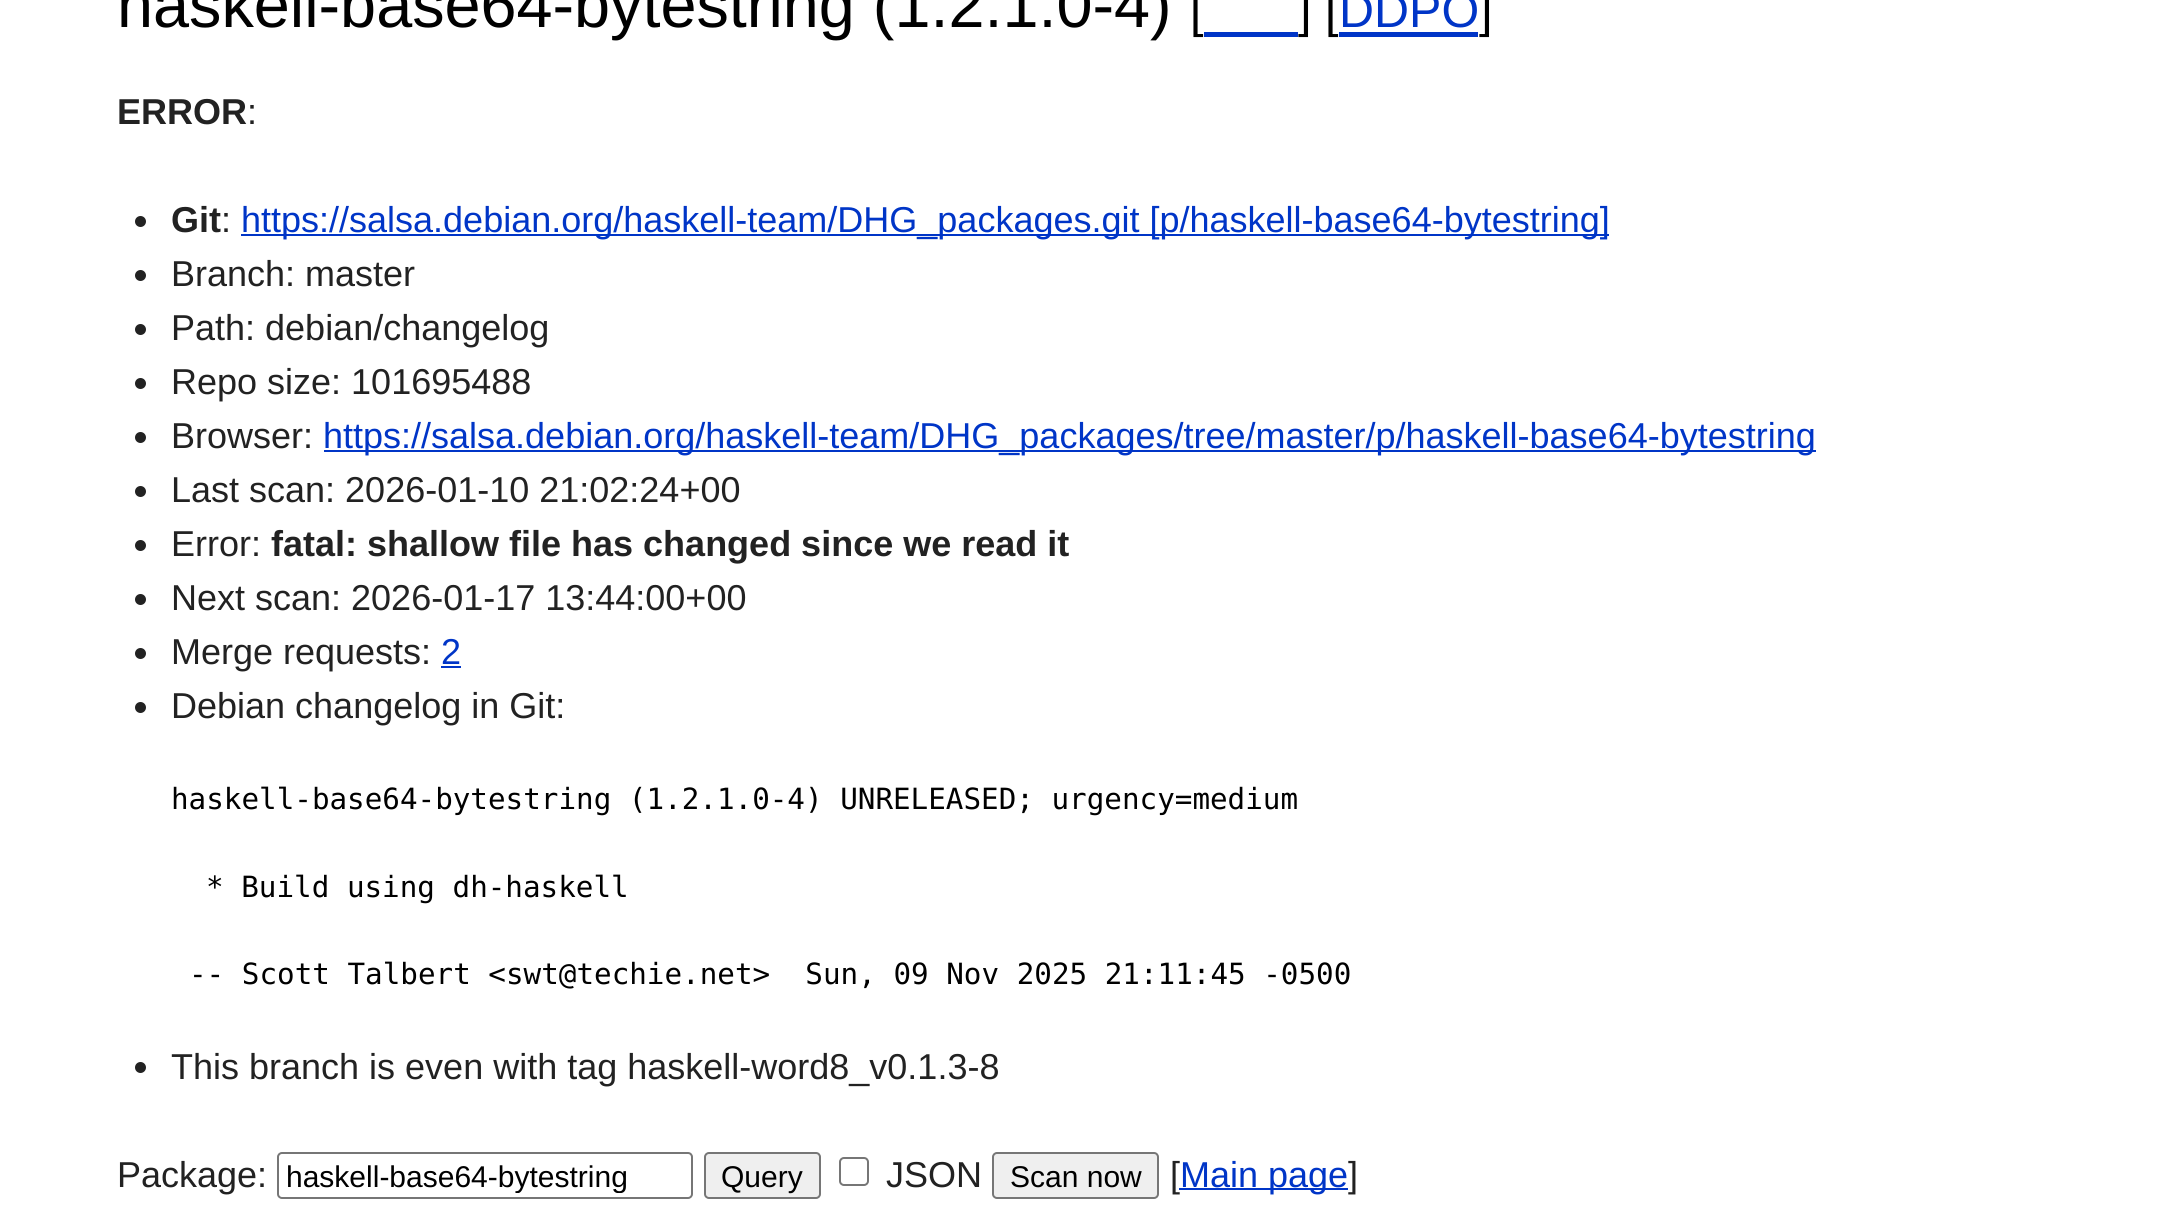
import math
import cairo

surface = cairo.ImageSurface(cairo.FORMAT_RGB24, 2168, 1222)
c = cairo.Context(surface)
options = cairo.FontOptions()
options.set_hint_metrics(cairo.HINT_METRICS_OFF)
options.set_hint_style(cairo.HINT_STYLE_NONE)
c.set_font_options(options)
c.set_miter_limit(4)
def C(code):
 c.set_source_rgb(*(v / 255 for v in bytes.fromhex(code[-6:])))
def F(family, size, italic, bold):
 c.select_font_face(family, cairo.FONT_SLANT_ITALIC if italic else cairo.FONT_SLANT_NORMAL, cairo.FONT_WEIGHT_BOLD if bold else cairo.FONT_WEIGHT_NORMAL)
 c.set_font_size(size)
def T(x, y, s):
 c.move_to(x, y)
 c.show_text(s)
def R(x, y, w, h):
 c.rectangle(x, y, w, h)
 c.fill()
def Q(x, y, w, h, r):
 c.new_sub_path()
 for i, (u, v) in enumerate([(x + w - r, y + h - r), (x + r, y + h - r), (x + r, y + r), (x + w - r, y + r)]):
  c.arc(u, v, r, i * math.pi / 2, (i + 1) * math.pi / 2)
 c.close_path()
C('ffffff')
c.paint()
F('Liberation Sans',64.75,0,0)
C('000000')
T(117,27,'haskell-base64-bytestring (1.2.1.0-4)')
F('Liberation Sans',48.5,0,0)
T(1190,27,'[')
C('0035c7')
R(1204,32,94,5)
C('000000')
T(1298,27,'] [')
C('0035c7')
R(1339,32,139,5)
T(1339,27,'DDPO')
C('000000')
T(1479,27,']')
F('Liberation Sans',36,0,1)
C('222222')
T(117,124,'ERROR')
F('Liberation Sans',36,0,0)
T(247,124,':')
c.new_path()
c.arc(140.5,221.5,5.5,0,2 * math.pi)
c.fill()
F('Liberation Sans',36,0,1)
T(171,232,'Git')
F('Liberation Sans',36,0,0)
T(221,232,':')
C('0035c7')
R(241,234,1368,2)
T(241,232,'https://salsa.debian.org/haskell-team/DHG_packages.git [p/haskell-base64-bytestring]')
C('222222')
c.new_path()
c.arc(140.5,275.5,5.5,0,2 * math.pi)
c.fill()
T(171,286,'Branch: master')
c.new_path()
c.arc(140.5,329.5,5.5,0,2 * math.pi)
c.fill()
T(171,340,'Path: debian/changelog')
c.new_path()
c.arc(140.5,383.5,5.5,0,2 * math.pi)
c.fill()
T(171,394,'Repo size: 101695488')
c.new_path()
c.arc(140.5,437.5,5.5,0,2 * math.pi)
c.fill()
T(171,448,'Browser:')
C('0035c7')
R(324,450,1492,2)
T(323,448,'https://salsa.debian.org/haskell-team/DHG_packages/tree/master/p/haskell-base64-bytestring')
C('222222')
c.new_path()
c.arc(140.5,491.5,5.5,0,2 * math.pi)
c.fill()
T(171,502,'Last scan: 2026-01-10 21:02:24+00')
c.new_path()
c.arc(140.5,545.5,5.5,0,2 * math.pi)
c.fill()
T(171,556,'Error:')
F('Liberation Sans',36,0,1)
T(271,556,'fatal: shallow file has changed since we read it')
c.new_path()
c.arc(140.5,599.5,5.5,0,2 * math.pi)
c.fill()
F('Liberation Sans',36,0,0)
T(171,610,'Next scan: 2026-01-17 13:44:00+00')
c.new_path()
c.arc(140.5,653.5,5.5,0,2 * math.pi)
c.fill()
T(171,664,'Merge requests:')
C('0035c7')
T(441,664,'2')
R(441,666,20,2)
C('222222')
c.new_path()
c.arc(140.5,707.5,5.5,0,2 * math.pi)
c.fill()
T(171,718,'Debian changelog in Git:')
F('DejaVu Sans Mono',29.25,0,0)
C('000000')
T(171,809,'haskell-base64-bytestring (1.2.1.0-4) UNRELEASED; urgency=medium')
T(206,897,'* Build using dh-haskell')
T(189,984,'-- Scott Talbert <swt@techie.net>  Sun, 09 Nov 2025 21:11:45 -0500')
C('222222')
c.new_path()
c.arc(140.5,1067.5,5.5,0,2 * math.pi)
c.fill()
F('Liberation Sans',36,0,0)
T(171,1079,'This branch is even with tag haskell-word8_v0.1.3-8')
T(117,1187,'Package:')
Q(278,1153,414,45,4)
C('767676')
c.stroke()
c.save()
c.rectangle(286,1159,398,34)
c.clip()
F('Liberation Sans',30,0,0)
C('000000')
T(286,1187,'haskell-base64-bytestring')
c.restore()
C('efefef')
Q(705,1153,115,45,4)
c.fill_preserve()
C('767676')
c.stroke()
F('Liberation Sans',30,0,0)
C('000000')
T(721,1187,'Query')
Q(840,1158,28,27,4)
C('767676')
c.stroke()
F('Liberation Sans',36,0,0)
C('222222')
T(886,1187,'JSON')
C('efefef')
Q(993,1153,165,45,4)
c.fill_preserve()
C('767676')
c.stroke()
F('Liberation Sans',30,0,0)
C('000000')
T(1010,1187,'Scan now')
F('Liberation Sans',36,0,0)
C('222222')
T(1170,1187,'[')
C('0035c7')
R(1179,1188,169,2)
T(1180,1187,'Main page')
C('222222')
T(1348,1187,']')
surface.write_to_png('o.png')
